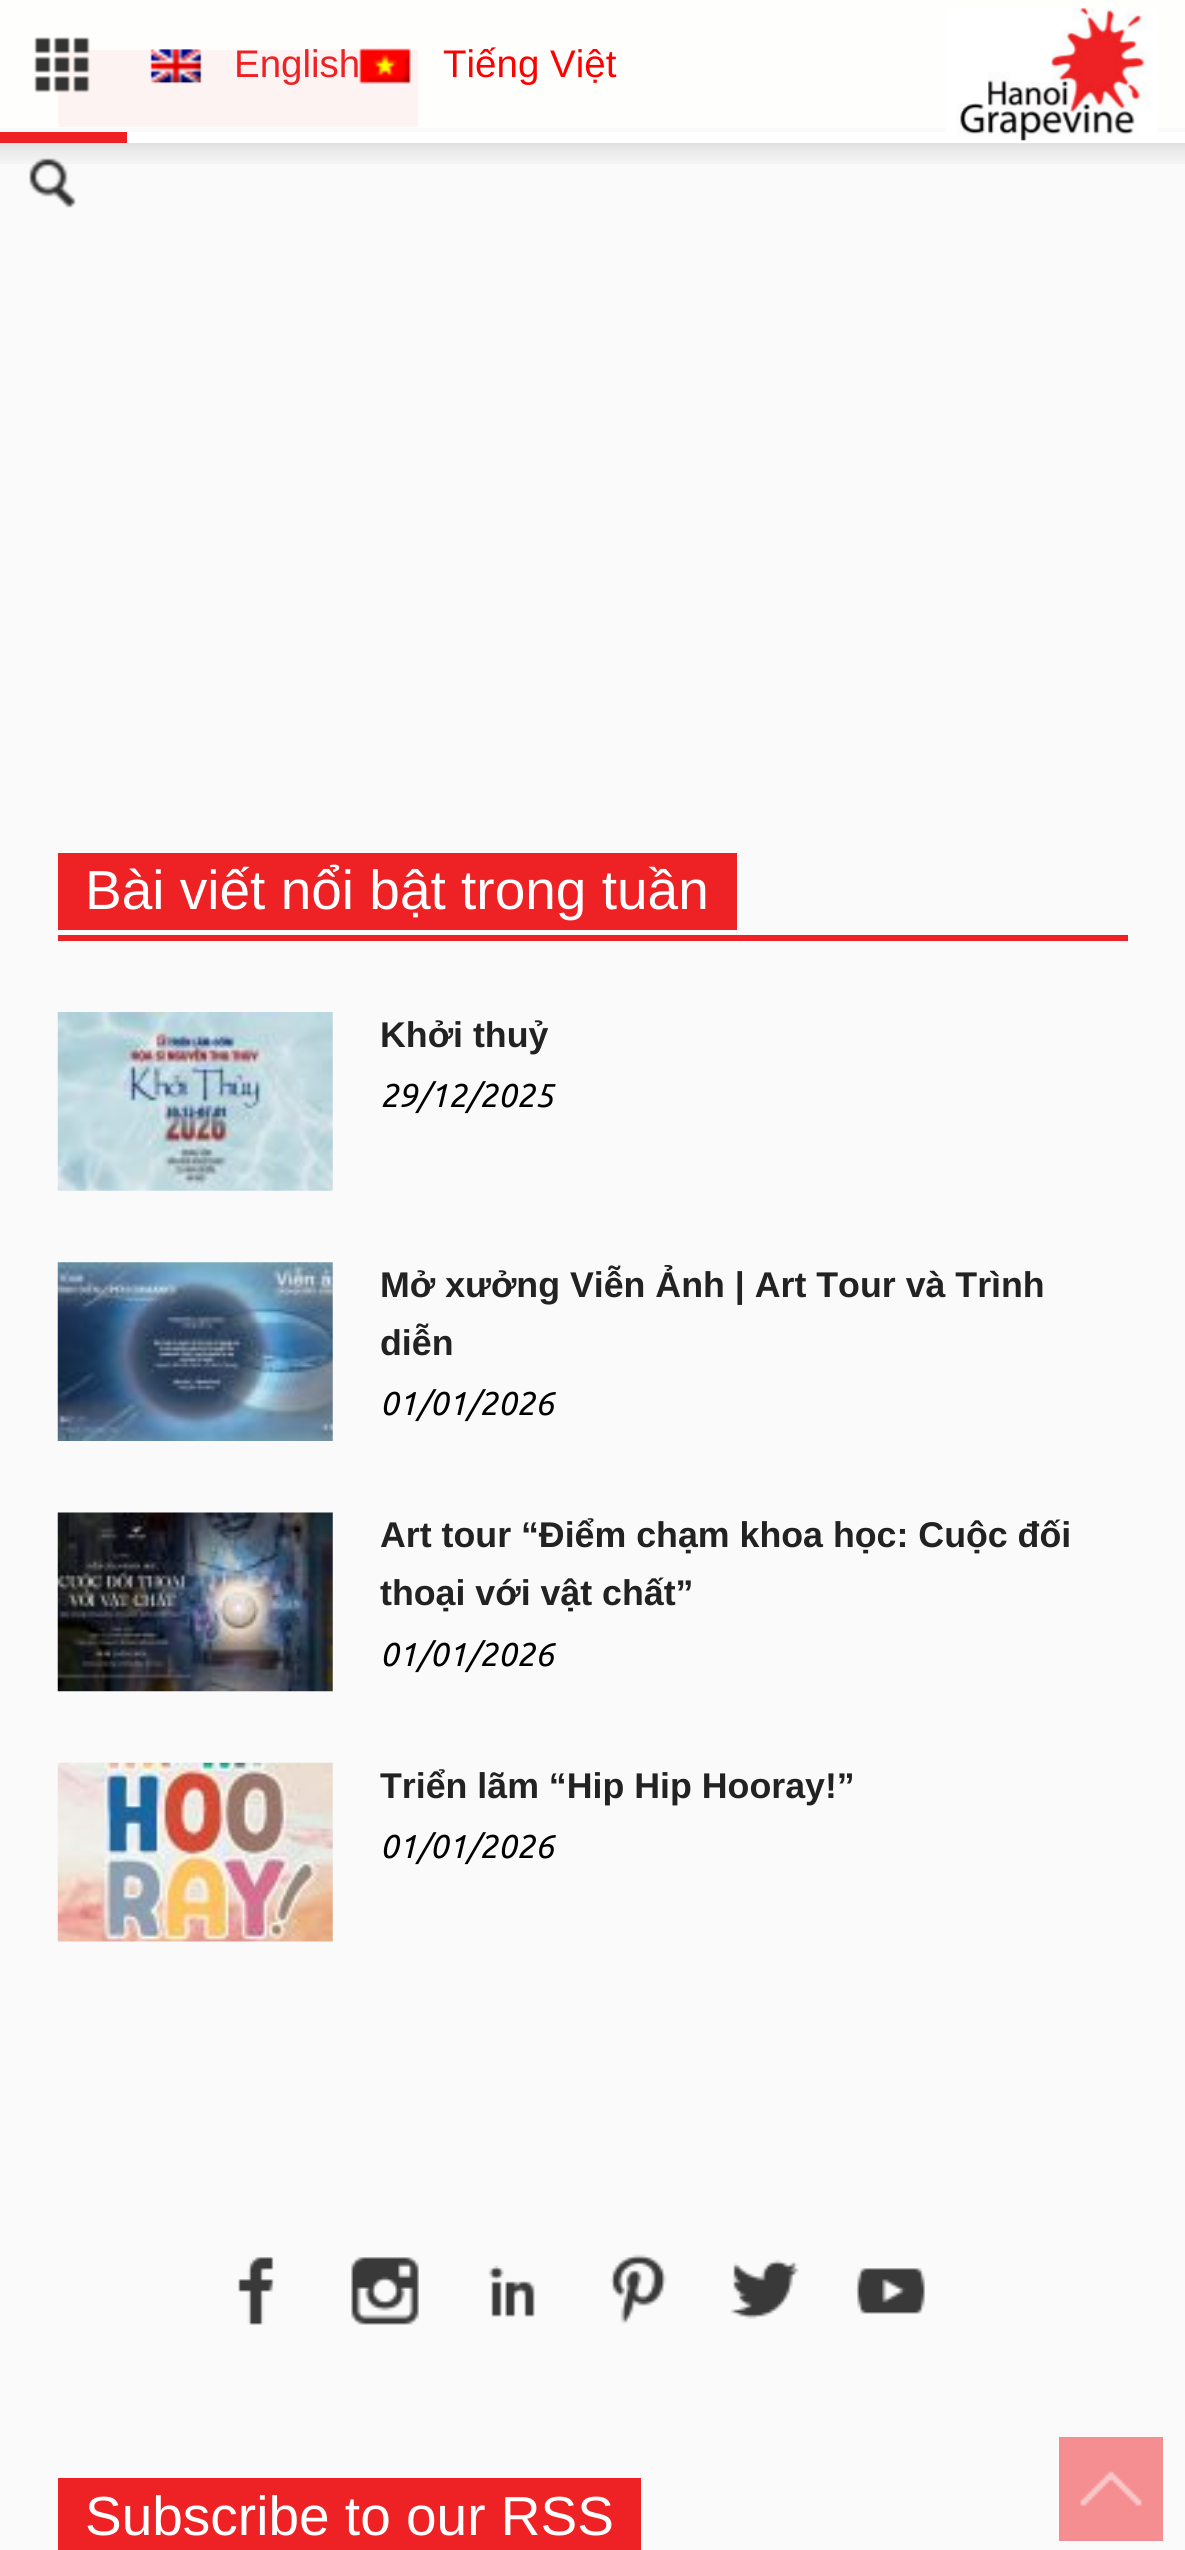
import math
import cairo

surface = cairo.ImageSurface(cairo.FORMAT_RGB24, 1185, 2550)
c = cairo.Context(surface)
options = cairo.FontOptions()
options.set_hint_metrics(cairo.HINT_METRICS_OFF)
options.set_hint_style(cairo.HINT_STYLE_NONE)
c.set_font_options(options)
c.set_miter_limit(4)
def C(code):
 c.set_source_rgb(*(v / 255 for v in bytes.fromhex(code[-6:])))
def F(family, size, italic, bold):
 c.select_font_face(family, cairo.FONT_SLANT_ITALIC if italic else cairo.FONT_SLANT_NORMAL, cairo.FONT_WEIGHT_BOLD if bold else cairo.FONT_WEIGHT_NORMAL)
 c.set_font_size(size)
def T(x, y, s):
 c.move_to(x, y)
 c.show_text(s)
def R(x, y, w, h):
 c.rectangle(x, y, w, h)
 c.fill()
def I(path, x, y, w, h):
 c.save()
 c.set_source_surface(cairo.ImageSurface.create_from_png(path), x, y)
 c.rectangle(x, y, w, h)
 c.fill()
 c.restore()
C('fafafa')
c.paint()
C('ffffff')
R(127,132,1058,11)
C('ee2225')
R(0,132,127,11)
C('fefefd')
R(0,0,1185,128)
C('fdf3f2')
R(58,50,360,77)
I('1.png',34,37,56,56)
I('2.png',150,49,52,35)
F('Liberation Sans',38.5,0,0)
C('ee2225')
T(234,77,'English')
I('3.png',359,48,52,36)
C('ff0000')
T(443,77,'Tiếng Việt')
I('4.png',946,8,212,133)
I('6.png',0,143,1185,21)
I('5.png',29,158,47,50)
C('ee2225')
R(58,935,1070,6)
R(58,853,679,77)
F('Liberation Sans',55,0,0)
C('ffffff')
T(85,909,'Bài viết nổi bật trong tuần')
I('7.png',57,1012,276,179)
F('Liberation Sans',35.75,0,1)
C('222222')
T(380,1047,'Khởi thuỷ')
F('Ubuntu',33,1,0)
C('000000')
T(380,1107,'29/12/2025')
I('8.png',57,1262,276,179)
F('Liberation Sans',35.75,0,1)
C('222222')
T(380,1297,'Mở xưởng Viễn Ảnh | Art Tour và Trình')
T(380,1355,'diễn')
F('Ubuntu',33,1,0)
C('000000')
T(380,1415,'01/01/2026')
I('9.png',57,1512,276,180)
F('Liberation Sans',35.75,0,1)
C('222222')
T(380,1547,'Art tour “Điểm chạm khoa học: Cuộc đối')
T(380,1605,'thoại với vật chất”')
F('Ubuntu',33,1,0)
C('000000')
T(380,1666,'01/01/2026')
I('10.png',57,1762,276,180)
F('Liberation Sans',35.75,0,1)
C('222222')
T(380,1798,'Triển lãm “Hip Hip Hooray!”')
F('Ubuntu',33,1,0)
C('000000')
T(380,1858,'01/01/2026')
I('11.png',238,2257,37,68)
I('12.png',351,2257,68,68)
I('13.png',488,2265,47,52)
I('14.png',610,2254,57,70)
I('15.png',730,2259,69,60)
I('16.png',855,2268,70,46)
C('ee2225')
R(58,2478,583,72)
F('Liberation Sans',55,0,0)
C('ffffff')
T(85,2535,'Subscribe to our RSS')
C('f48e90')
R(1059,2437,104,104)
I('17.png',1080,2471,62,35)
surface.write_to_png('o.png')
